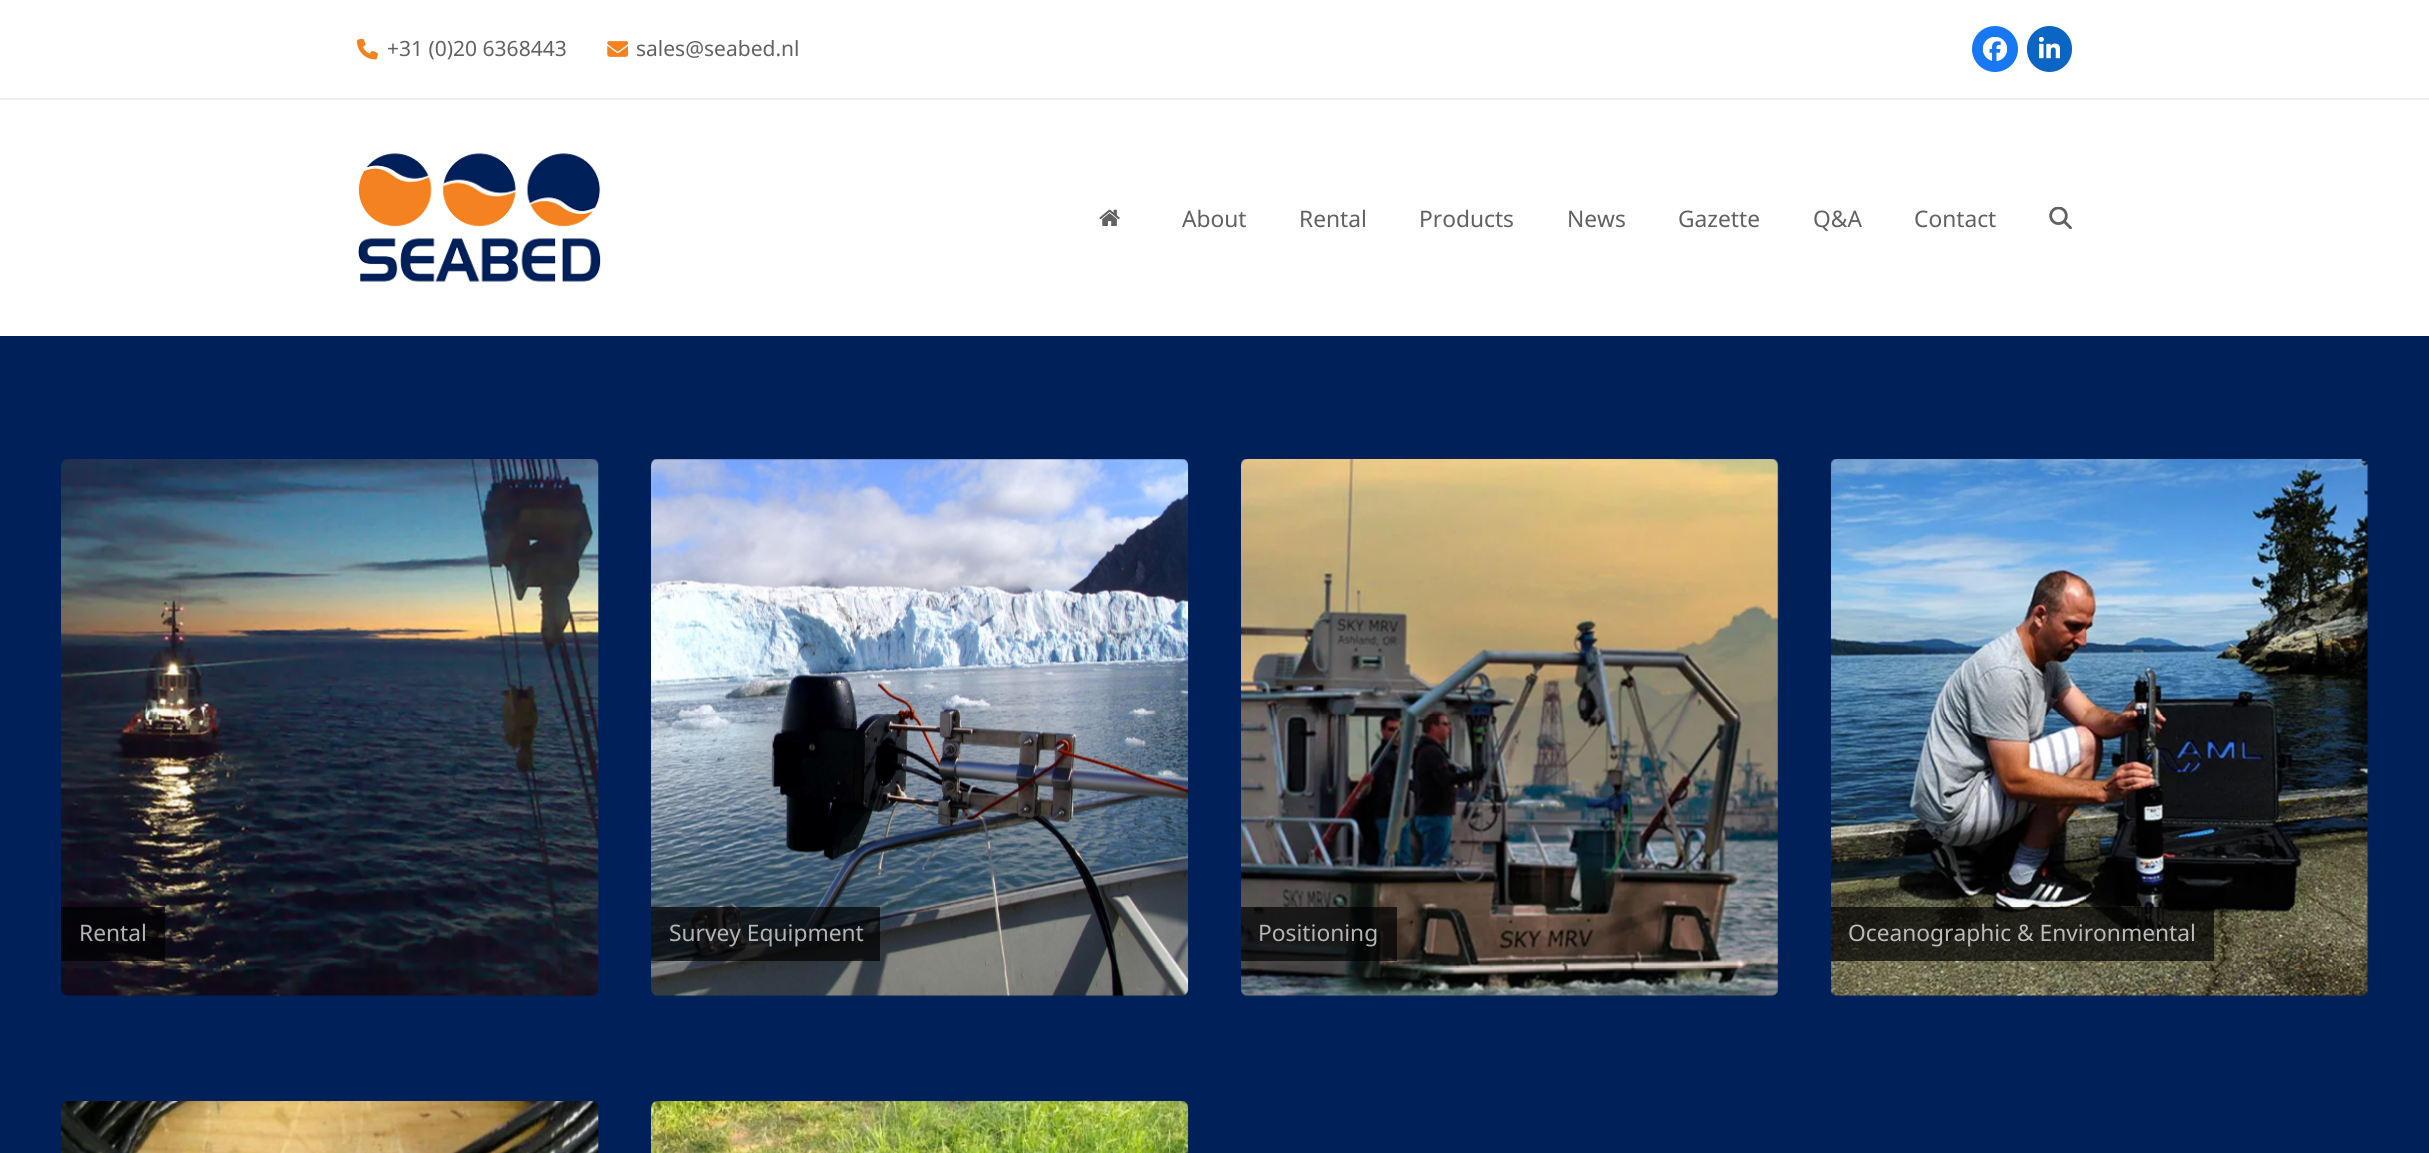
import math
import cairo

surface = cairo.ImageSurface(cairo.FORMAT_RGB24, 2429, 1153)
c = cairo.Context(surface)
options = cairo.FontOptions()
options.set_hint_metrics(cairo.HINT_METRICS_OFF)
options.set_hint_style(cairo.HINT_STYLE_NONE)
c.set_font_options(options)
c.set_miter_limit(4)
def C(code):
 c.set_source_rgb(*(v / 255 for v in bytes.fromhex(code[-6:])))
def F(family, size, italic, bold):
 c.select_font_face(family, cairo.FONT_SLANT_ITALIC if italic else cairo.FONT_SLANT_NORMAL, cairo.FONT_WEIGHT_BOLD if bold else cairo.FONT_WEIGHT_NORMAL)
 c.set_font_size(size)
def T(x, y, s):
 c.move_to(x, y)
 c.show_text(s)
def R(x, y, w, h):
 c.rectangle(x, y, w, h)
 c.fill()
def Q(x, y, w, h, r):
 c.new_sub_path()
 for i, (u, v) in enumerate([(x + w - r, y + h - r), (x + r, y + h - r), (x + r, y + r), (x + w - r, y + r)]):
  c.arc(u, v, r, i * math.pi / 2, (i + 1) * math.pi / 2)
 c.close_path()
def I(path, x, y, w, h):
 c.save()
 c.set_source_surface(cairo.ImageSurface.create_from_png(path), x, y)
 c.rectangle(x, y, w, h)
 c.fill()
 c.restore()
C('00205a')
c.paint()
C('ffffff')
R(0,0,2429,98)
C('eeeeee')
R(0,98,2429,2)
I('1.png',357,39,21,21)
F('Noto Sans',21,0,0)
C('616161')
T(387,56,'+31 (0)20 6368443')
I('2.png',607,41,21,16)
T(636,56,'sales@seabed.nl')
C('1877f2')
c.new_path()
c.arc(1995,49,23,0,2 * math.pi)
c.fill()
I('3.png',1983,37,24,24)
C('0a66c2')
Q(2027,26,45,46,22.5)
c.fill()
I('4.png',2039,37,21,22)
C('ffffff')
R(0,100,2429,236)
I('5.png',358,153,243,129)
I('6.png',1099,209,21,17)
F('Noto Sans',22.75,0,0)
C('616161')
T(1182,227,'About')
T(1299,227,'Rental')
T(1419,227,'Products')
T(1567,227,'News')
T(1678,227,'Gazette')
T(1813,227,'Q&A')
T(1914,227,'Contact')
I('7.png',2049,207,23,22)
I('8.png',61,459,538,538)
c.set_source_rgba(0,0,0,0.7)
R(61,907,104,54)
C('b4b4b5')
T(79,941,'Rental')
I('9.png',651,459,538,538)
c.set_source_rgba(0,0,0,0.7)
R(651,907,229,54)
C('b4b4b5')
T(669,941,'Survey Equipment')
I('10.png',1241,459,538,538)
c.set_source_rgba(0,0,0,0.7)
R(1241,907,156,54)
C('b4b4b5')
T(1258,941,'Positioning')
I('11.png',1831,459,538,538)
c.set_source_rgba(0,0,0,0.7)
R(1831,907,383,54)
C('bbbbb9')
T(1848,941,'Oceanographic & Environmental')
I('12.png',61,1101,538,52)
I('13.png',651,1101,538,52)
surface.write_to_png('o.png')
